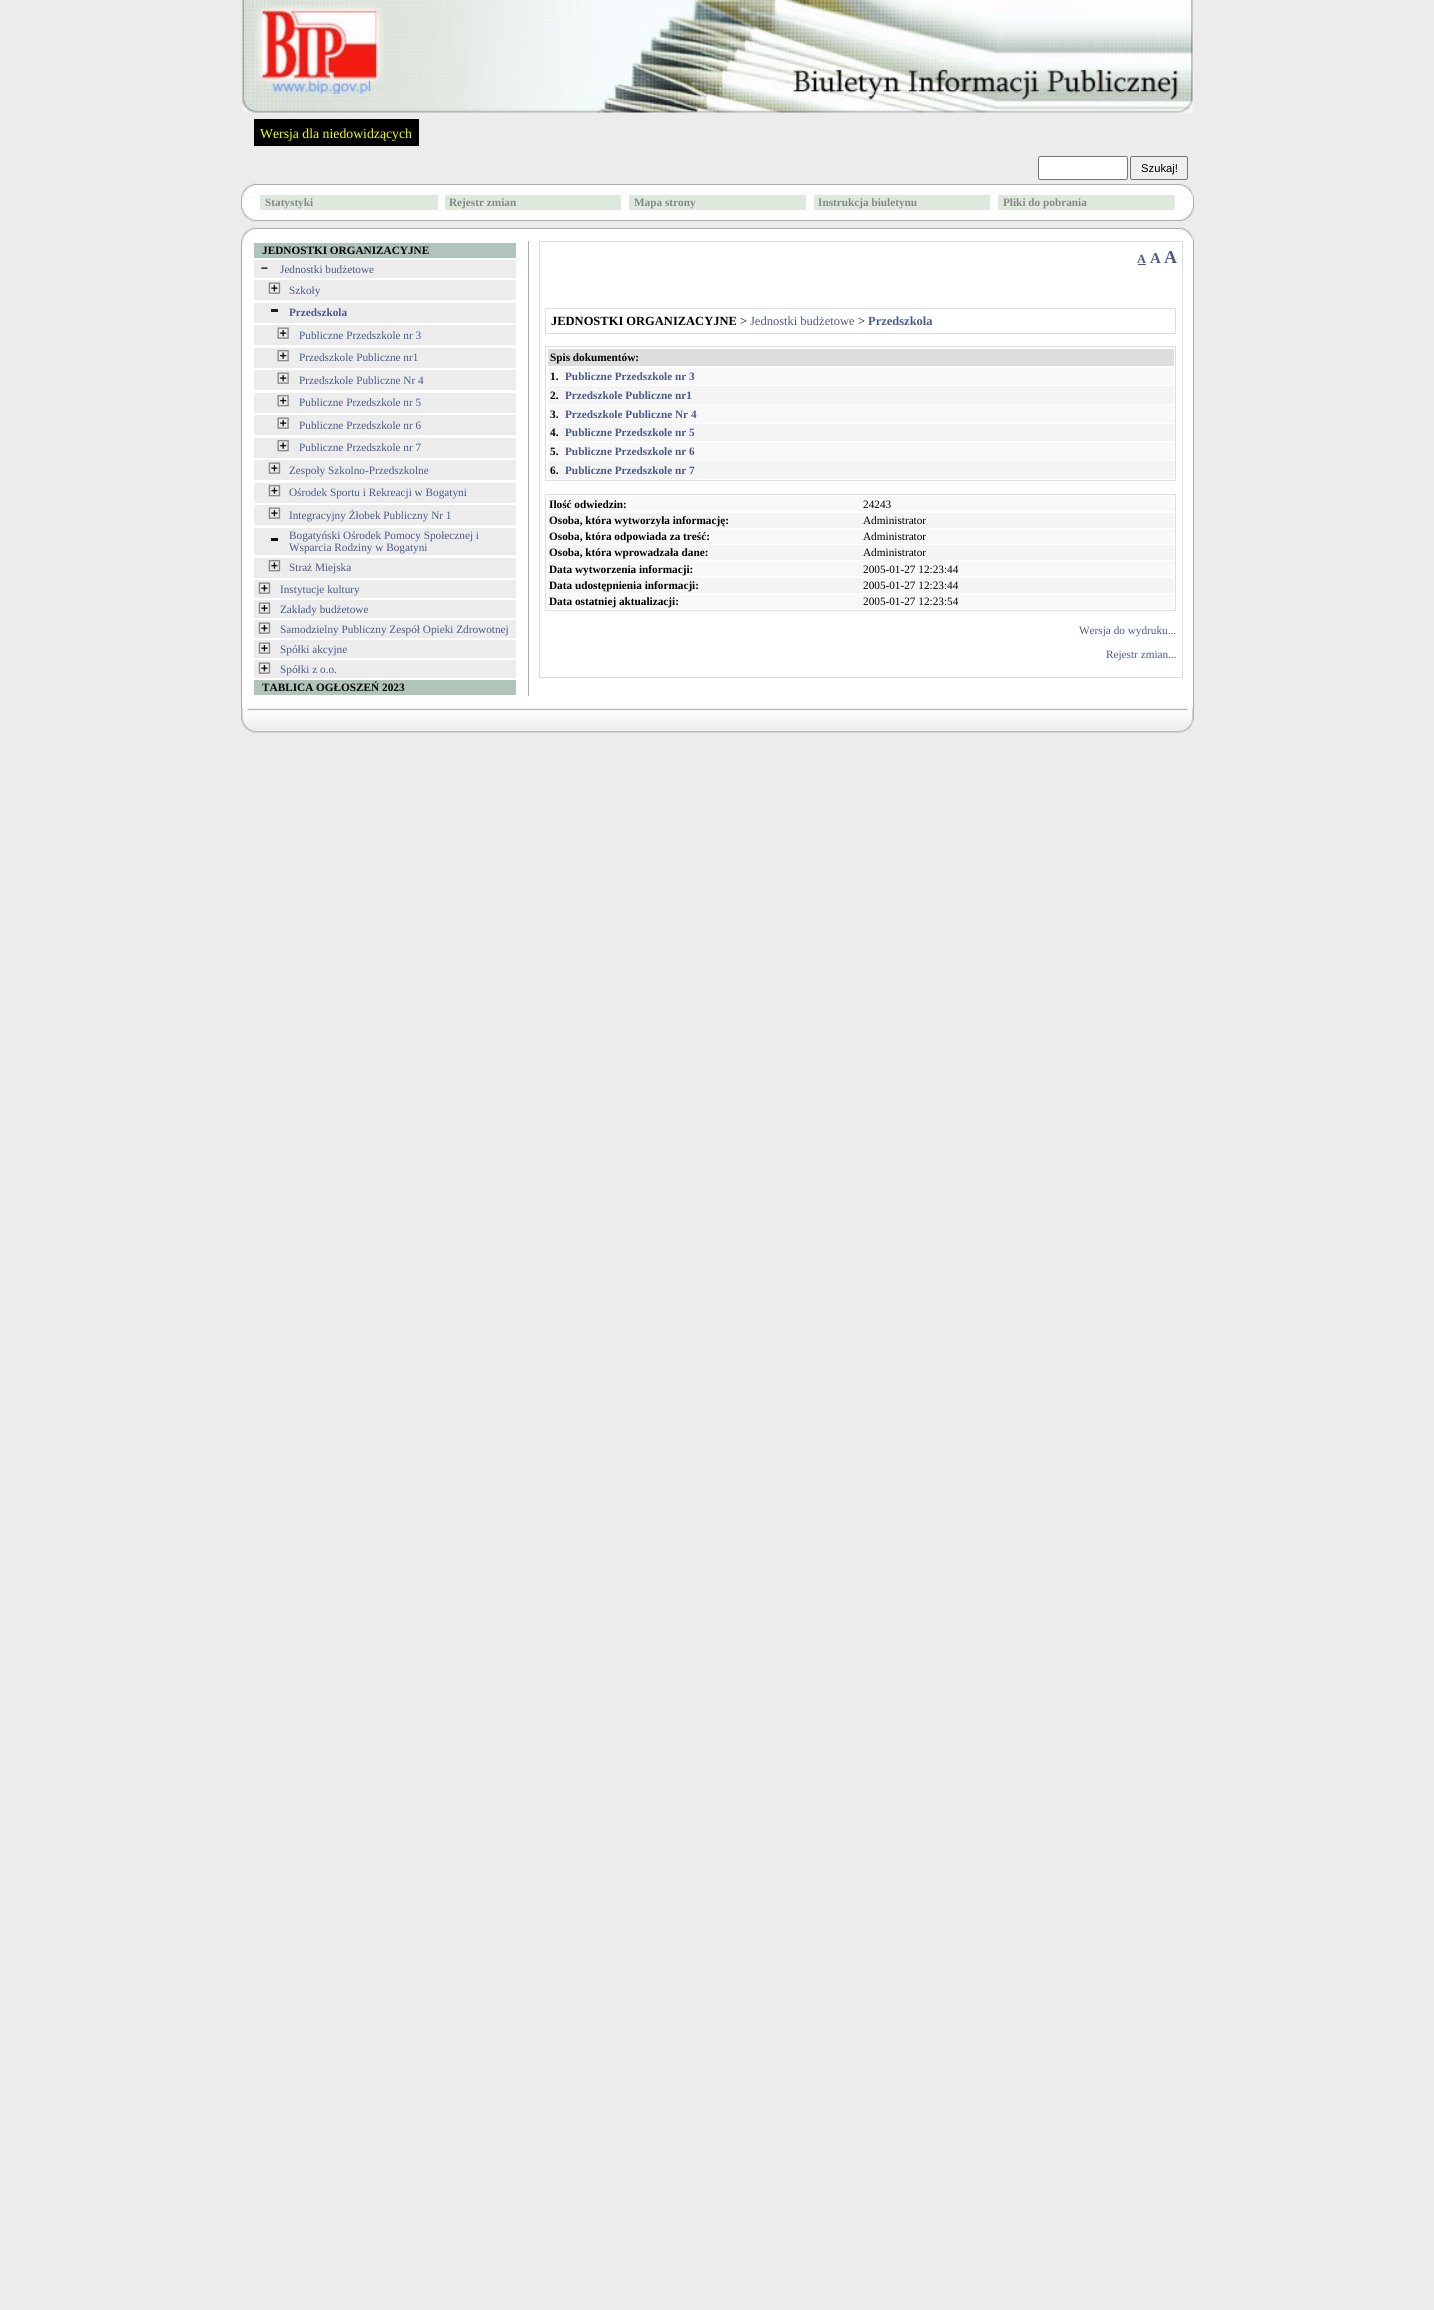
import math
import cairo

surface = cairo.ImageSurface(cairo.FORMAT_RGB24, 1434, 2310)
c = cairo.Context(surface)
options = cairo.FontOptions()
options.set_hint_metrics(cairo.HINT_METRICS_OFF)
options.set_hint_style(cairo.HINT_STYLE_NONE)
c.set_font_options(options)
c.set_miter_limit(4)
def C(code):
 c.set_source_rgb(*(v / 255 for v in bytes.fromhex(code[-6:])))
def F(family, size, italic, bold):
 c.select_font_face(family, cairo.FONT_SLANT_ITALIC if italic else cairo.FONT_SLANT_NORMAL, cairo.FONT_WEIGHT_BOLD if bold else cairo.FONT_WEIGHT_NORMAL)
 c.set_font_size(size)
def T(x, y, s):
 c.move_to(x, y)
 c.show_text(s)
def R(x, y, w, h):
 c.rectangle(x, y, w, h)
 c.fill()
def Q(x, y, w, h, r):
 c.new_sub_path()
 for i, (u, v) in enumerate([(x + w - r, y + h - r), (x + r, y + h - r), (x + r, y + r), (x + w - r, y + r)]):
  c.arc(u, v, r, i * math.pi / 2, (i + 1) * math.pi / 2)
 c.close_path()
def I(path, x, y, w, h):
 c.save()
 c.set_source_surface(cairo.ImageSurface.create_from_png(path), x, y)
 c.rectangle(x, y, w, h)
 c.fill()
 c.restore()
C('ececec')
c.paint()
I('1.png',242,0,951,113)
C('000000')
R(254,119,165,27)
F('Liberation Serif',13.75,0,0)
C('f6ff00')
T(260,138,'Wersja dla niedowidzących')
C('ffffff')
Q(1038.5,156.5,89,23,2)
c.fill_preserve()
C('767676')
c.set_line_width(1)
c.stroke()
C('efefef')
Q(1130.5,156.5,57,23,2)
c.fill_preserve()
C('767676')
c.stroke()
F('Liberation Sans',11.25,0,0)
C('000000')
T(1141,172,'Szukaj!')
C('ffffff')
R(242,198,13,10)
C('ababab')
R(241,198,1,10)
C('ffffff')
R(1180,198,13,10)
C('ababab')
R(1193,198,1,10)
I('2.png',241,183,14,15)
I('3.png',1180,183,14,15)
C('ffffff')
R(255,185,925,35)
C('ababab')
R(255,184,925,1)
R(255,220,925,1)
C('dee9de')
R(260,195,178,15)
F('Liberation Serif',11.25,0,1)
C('878787')
T(265,206,'Statystyki')
C('dee9de')
R(445,195,176,15)
C('878787')
T(449,206,'Rejestr zmian')
C('dee9de')
R(629,195,177,15)
C('878787')
T(634,206,'Mapa strony')
C('dee9de')
R(814,195,176,15)
C('878787')
T(818,206,'Instrukcja biuletynu')
C('dee9de')
R(998,195,177,15)
C('878787')
T(1003,206,'Pliki do pobrania')
I('4.png',241,207,14,15)
I('5.png',1180,207,14,15)
C('ffffff')
R(242,241,951,468)
C('ababab')
R(241,241,1,468)
I('6.png',241,227,14,15)
C('ffffff')
R(255,229,925,12)
C('ababab')
R(255,228,925,1)
R(1193,241,1,468)
c.rectangle(539.5,241.5,643,436)
C('dddddd')
c.stroke()
I('7.png',1180,227,14,15)
C('b0c4bb')
R(254,243,262,15)
C('000000')
T(262,254,'JEDNOSTKI ORGANIZACYJNE')
C('ececec')
R(254,260,262,18)
I('8.png',261,267,7,2)
F('Liberation Serif',11.25,0,0)
C('4a5a8b')
T(280,273,'Jednostki budżetowe')
C('ececec')
R(254,280,262,20)
I('9.png',268,282,13,12)
C('4a5a8b')
T(289,294,'Szkoły')
C('ececec')
R(254,303,262,20)
C('1f1f1f')
R(271,309,7,3)
F('Liberation Serif',11.25,0,1)
C('4a5a8b')
T(289,316,'Przedszkola')
C('ececec')
R(254,325,262,20)
I('10.png',277,327,12,12)
F('Liberation Serif',11.25,0,0)
C('4a5a8b')
T(299,339,'Publiczne Przedszkole nr 3')
C('ececec')
R(254,348,262,20)
I('11.png',277,349,12,13)
C('4a5a8b')
T(299,361,'Przedszkole Publiczne nr1')
C('ececec')
R(254,370,262,20)
I('10.png',277,372,12,12)
C('4a5a8b')
T(299,384,'Przedszkole Publiczne Nr 4')
C('ececec')
R(254,393,262,20)
I('11.png',277,394,12,13)
C('4a5a8b')
T(299,406,'Publiczne Przedszkole nr 5')
C('ececec')
R(254,415,262,20)
I('10.png',277,417,12,12)
C('4a5a8b')
T(299,429,'Publiczne Przedszkole nr 6')
C('ececec')
R(254,438,262,20)
I('11.png',277,439,12,13)
C('4a5a8b')
T(299,451,'Publiczne Przedszkole nr 7')
C('ececec')
R(254,460,262,20)
I('9.png',268,462,13,12)
C('4a5a8b')
T(289,474,'Zespoły Szkolno-Przedszkolne')
C('ececec')
R(254,483,262,20)
I('12.png',268,484,13,13)
C('4a5a8b')
T(289,496,'Ośrodek Sportu i Rekreacji w Bogatyni')
C('ececec')
R(254,505,262,20)
I('9.png',268,507,13,12)
C('4a5a8b')
T(289,519,'Integracyjny Żłobek Publiczny Nr 1')
C('ececec')
R(254,528,262,27)
C('0e0e0e')
R(271,538,7,3)
C('4a5a8b')
T(289,539,'Bogatyński Ośrodek Pomocy Społecznej i')
T(289,551,'Wsparcia Rodziny w Bogatyni')
C('ececec')
R(254,558,262,20)
I('12.png',268,559,13,13)
C('4a5a8b')
T(289,571,'Straż Miejska')
C('ececec')
R(254,580,262,18)
I('13.png',258,582,13,12)
C('4a5a8b')
T(280,593,'Instytucje kultury')
C('ececec')
R(254,600,262,18)
I('9.png',258,602,13,12)
C('4a5a8b')
T(280,613,'Zakłady budżetowe')
C('ececec')
R(254,620,262,18)
I('9.png',258,622,13,12)
C('4a5a8b')
T(280,633,'Samodzielny Publiczny Zespół Opieki Zdrowotnej')
C('ececec')
R(254,640,262,18)
I('9.png',258,642,13,12)
C('4a5a8b')
T(280,653,'Spółki akcyjne')
C('ececec')
R(254,660,262,18)
I('9.png',258,662,13,12)
C('4a5a8b')
T(280,673,'Spółki z o.o.')
C('b0c4bb')
R(254,680,262,15)
F('Liberation Serif',11.25,0,1)
C('000000')
T(262,691,'TABLICA OGŁOSZEŃ 2023')
C('ababab')
R(528,241,1,455)
F('Liberation Serif',12.5,0,1)
C('4a5a8b')
T(1137,263,'A')
R(1138,264,8,1)
F('Liberation Serif',15,0,1)
T(1150,263,'A')
F('Liberation Serif',18,0,1)
T(1164,263,'A')
c.rectangle(545.5,308.5,630,25)
C('dddddd')
c.stroke()
F('Liberation Serif',12.5,0,1)
C('000000')
T(551,325,'JEDNOSTKI ORGANIZACYJNE')
F('Liberation Serif',12.5,0,0)
T(740,325,'>')
C('4a5a8b')
T(750,325,'Jednostki budżetowe')
C('000000')
T(858,325,'>')
F('Liberation Serif',12.5,0,1)
C('4a5a8b')
T(868,325,'Przedszkola')
c.rectangle(545.5,346.5,630,134)
C('dddddd')
c.stroke()
R(548,349,626,17)
F('Liberation Serif',11.25,0,1)
C('000000')
T(550,361,'Spis dokumentów:')
C('f8f8f8')
R(548,368,626,17)
C('000000')
T(550,380,'1.')
C('4a5a8b')
T(565,380,'Publiczne Przedszkole nr 3')
C('f4f4f4')
R(548,386,626,18)
C('000000')
T(550,399,'2.')
C('4a5a8b')
T(565,399,'Przedszkole Publiczne nr1')
C('f8f8f8')
R(548,405,626,18)
C('000000')
T(550,418,'3.')
C('4a5a8b')
T(565,418,'Przedszkole Publiczne Nr 4')
C('f4f4f4')
R(548,424,626,17)
C('000000')
T(550,436,'4.')
C('4a5a8b')
T(565,436,'Publiczne Przedszkole nr 5')
C('f8f8f8')
R(548,443,626,17)
C('000000')
T(550,455,'5.')
C('4a5a8b')
T(565,455,'Publiczne Przedszkole nr 6')
C('f4f4f4')
R(548,461,626,18)
C('000000')
T(550,474,'6.')
C('4a5a8b')
T(565,474,'Publiczne Przedszkole nr 7')
c.rectangle(545.5,494.5,630,116)
C('dddddd')
c.stroke()
C('f8f8f8')
R(548,496,626,15)
C('000000')
T(549,508,'Ilość odwiedzin:')
F('Liberation Serif',11.25,0,0)
T(863,508,'24243')
C('f4f4f4')
R(548,513,626,15)
F('Liberation Serif',11.25,0,1)
C('000000')
T(549,524,'Osoba, która wytworzyła informację:')
F('Liberation Serif',11.25,0,0)
T(863,524,'Administrator')
C('f8f8f8')
R(548,529,626,15)
F('Liberation Serif',11.25,0,1)
C('000000')
T(549,540,'Osoba, która odpowiada za treść:')
F('Liberation Serif',11.25,0,0)
T(863,540,'Administrator')
C('f4f4f4')
R(548,545,626,15)
F('Liberation Serif',11.25,0,1)
C('000000')
T(549,556,'Osoba, która wprowadzała dane:')
F('Liberation Serif',11.25,0,0)
T(863,556,'Administrator')
C('f8f8f8')
R(548,561,626,15)
F('Liberation Serif',11.25,0,1)
C('000000')
T(549,573,'Data wytworzenia informacji:')
F('Liberation Serif',11.25,0,0)
T(863,573,'2005-01-27 12:23:44')
C('f4f4f4')
R(548,578,626,15)
F('Liberation Serif',11.25,0,1)
C('000000')
T(549,589,'Data udostępnienia informacji:')
F('Liberation Serif',11.25,0,0)
T(863,589,'2005-01-27 12:23:44')
C('f8f8f8')
R(548,594,626,15)
F('Liberation Serif',11.25,0,1)
C('000000')
T(549,605,'Data ostatniej aktualizacji:')
F('Liberation Serif',11.25,0,0)
T(863,605,'2005-01-27 12:23:54')
C('4a5a8b')
T(1079,634,'Wersja do wydruku...')
T(1106,658,'Rejestr zmian...')
I('14.png',241,708,14,25)
C('ffffff')
R(255,732,925,1)
I('15.png',255,708,925,25)
I('16.png',1180,708,14,25)
surface.write_to_png('o.png')
